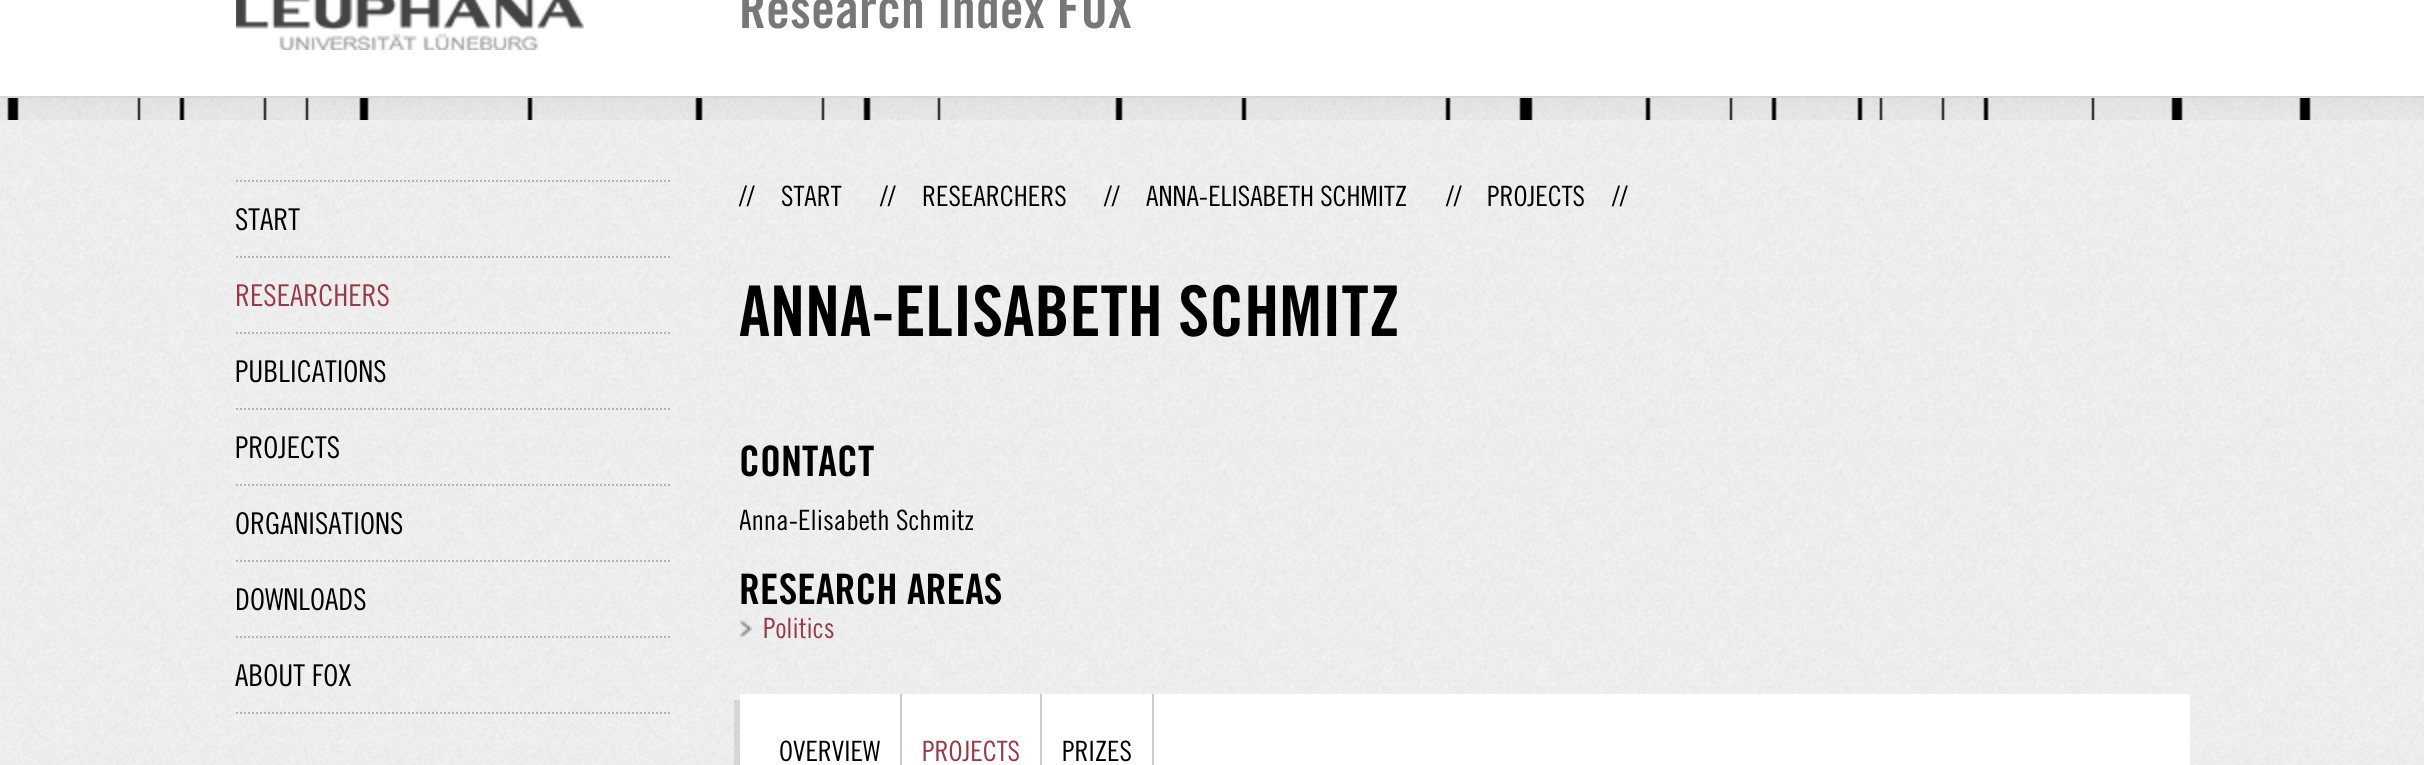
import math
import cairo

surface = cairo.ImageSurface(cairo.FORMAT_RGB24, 2424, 765)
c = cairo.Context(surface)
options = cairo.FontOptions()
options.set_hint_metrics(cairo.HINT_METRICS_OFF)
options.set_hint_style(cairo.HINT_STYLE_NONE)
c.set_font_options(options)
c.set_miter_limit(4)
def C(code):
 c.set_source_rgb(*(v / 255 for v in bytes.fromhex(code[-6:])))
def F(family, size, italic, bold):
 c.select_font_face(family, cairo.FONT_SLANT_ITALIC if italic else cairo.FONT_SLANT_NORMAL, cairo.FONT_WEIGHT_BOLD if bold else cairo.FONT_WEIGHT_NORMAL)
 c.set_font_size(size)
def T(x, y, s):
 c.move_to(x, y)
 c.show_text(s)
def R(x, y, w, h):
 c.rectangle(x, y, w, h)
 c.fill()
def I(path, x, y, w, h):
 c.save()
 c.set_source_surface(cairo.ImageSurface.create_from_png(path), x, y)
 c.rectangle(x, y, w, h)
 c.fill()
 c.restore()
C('eeeeee')
c.paint()
I('1.png',1,120,2423,645)
C('ffffff')
R(0,0,2424,96)
C('d6d6d6')
R(0,96,2424,2)
I('2.png',236,0,348,50)
F('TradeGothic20',54,0,1)
C('777777')
T(739,28,'Research Index FOX')
I('3.png',0,98,2424,22)
c.new_path()
c.move_to(236,713)
c.line_to(670,713)
C('b5b5b5')
c.set_dash([2,2])
c.stroke()
c.new_path()
c.move_to(236,181)
c.line_to(670,181)
c.stroke()
F('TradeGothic',30,0,0)
C('000000')
T(235,230,'START')
c.new_path()
c.move_to(236,257)
c.line_to(670,257)
C('b5b5b5')
c.stroke()
C('973948')
T(235,306,'RESEARCHERS')
c.new_path()
c.move_to(236,333)
c.line_to(670,333)
C('b5b5b5')
c.stroke()
C('000000')
T(235,382,'PUBLICATIONS')
c.new_path()
c.move_to(236,409)
c.line_to(670,409)
C('b5b5b5')
c.stroke()
C('000000')
T(235,458,'PROJECTS')
c.new_path()
c.move_to(236,485)
c.line_to(670,485)
C('b5b5b5')
c.stroke()
C('000000')
T(235,534,'ORGANISATIONS')
c.new_path()
c.move_to(236,561)
c.line_to(670,561)
C('b5b5b5')
c.stroke()
C('000000')
T(235,610,'DOWNLOADS')
c.new_path()
c.move_to(236,637)
c.line_to(670,637)
C('b5b5b5')
c.stroke()
C('000000')
T(235,686,'ABOUT FOX')
F('TradeGothic',28,0,0)
T(739,206,'//')
T(781,206,'START')
T(880,206,'//')
T(922,206,'RESEARCHERS')
T(1104,206,'//')
T(1146,206,'ANNA-ELISABETH SCHMITZ')
T(1446,206,'//')
T(1487,206,'PROJECTS')
T(1612,206,'//')
F('TradeGothic20',70,0,1)
T(739,336,'ANNA-ELISABETH SCHMITZ')
F('TradeGothic20',42,0,1)
T(739,476,'CONTACT')
c.save()
c.rectangle(740,418,942,118)
c.clip()
F('TradeGothic',28,0,0)
T(739,530,'Anna-Elisabeth Schmitz')
c.restore()
T(739,604,'RESEARCH AREAS')
I('4.png',740,620,12,18)
F('TradeGothic',28,0,0)
C('973948')
T(763,638,'Politics')
c.set_source_rgba(0,0,0,0.1)
c.new_path()
c.move_to(734,700)
c.line_to(734,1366)
c.line_to(2184,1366)
c.line_to(2184,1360)
c.line_to(740,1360)
c.line_to(740,700)
c.close_path()
c.fill()
C('ffffff')
R(740,694,1450,71)
C('cdcdcd')
R(900,694,2,71)
C('000000')
T(779,761,'OVERVIEW')
C('cdcdcd')
R(1040,694,2,71)
C('973948')
T(922,761,'PROJECTS')
C('cdcdcd')
R(1152,694,2,71)
C('000000')
T(1062,761,'PRIZES')
surface.write_to_png('o.png')
